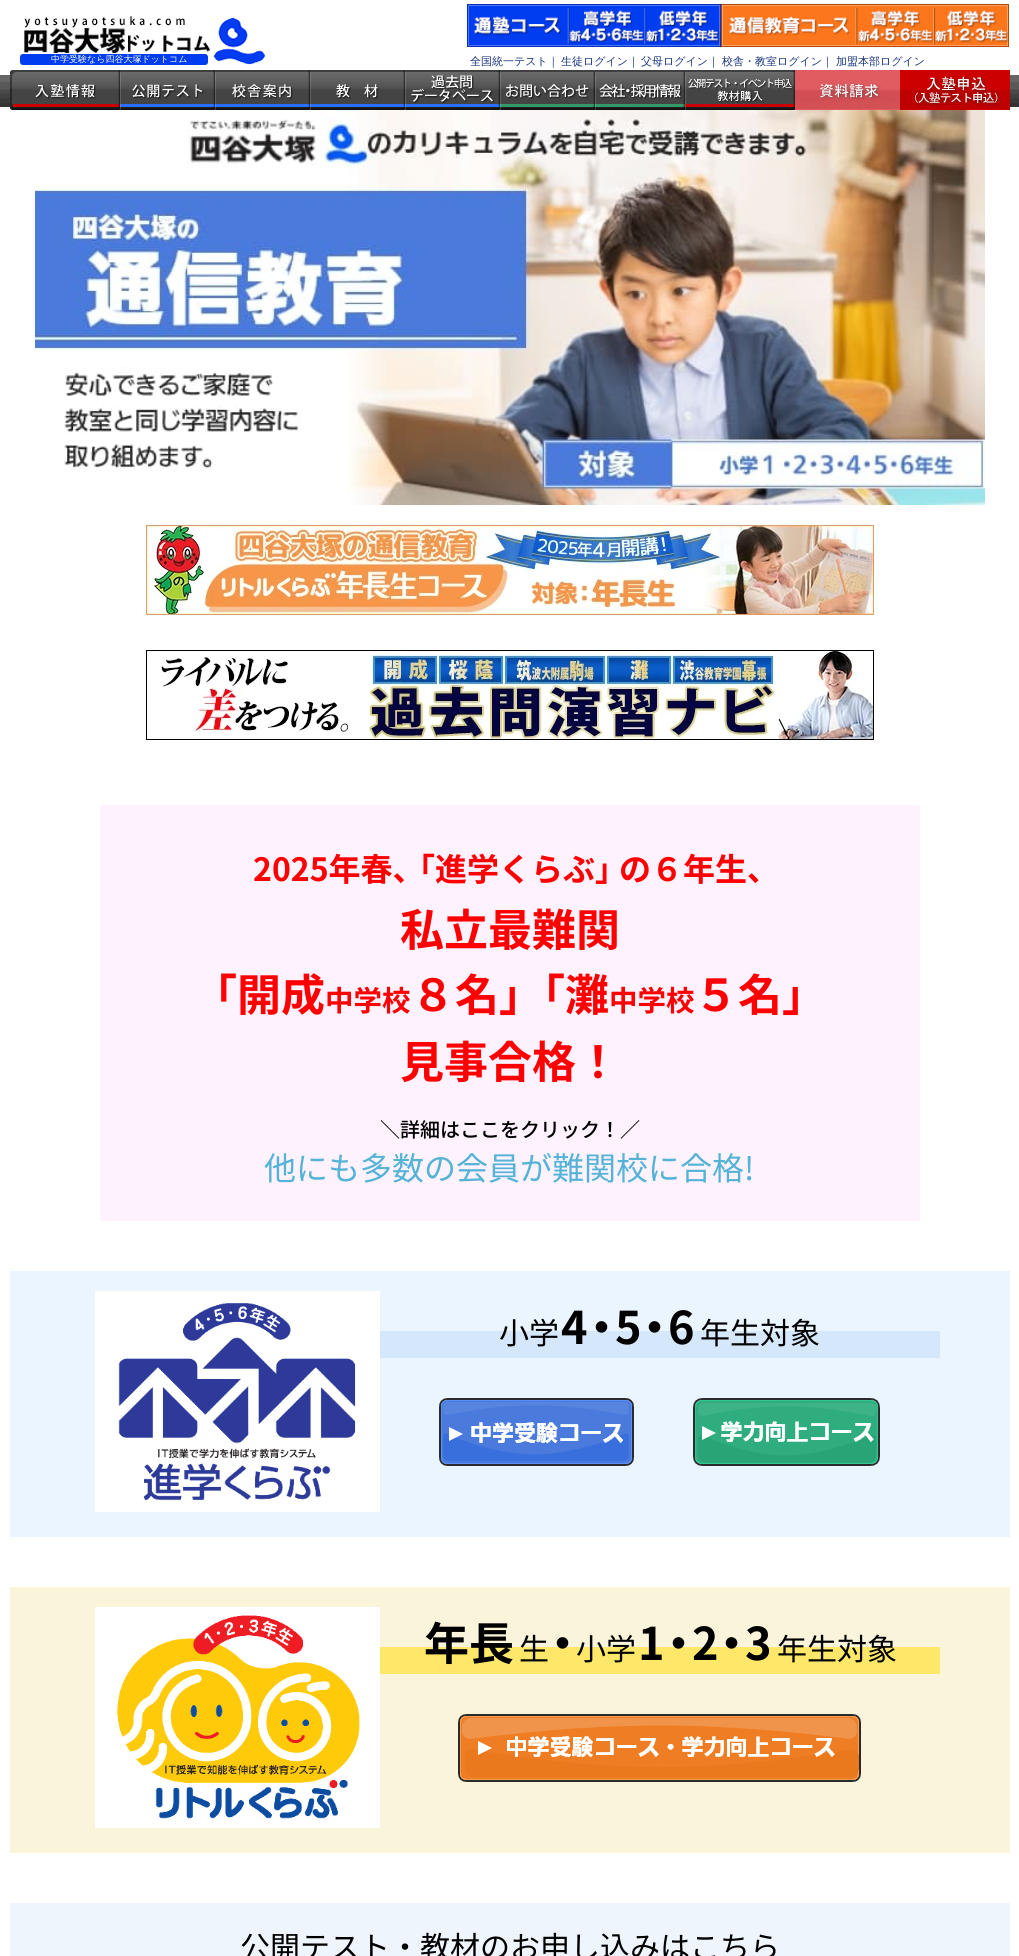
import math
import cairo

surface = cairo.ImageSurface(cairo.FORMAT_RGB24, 1019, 1956)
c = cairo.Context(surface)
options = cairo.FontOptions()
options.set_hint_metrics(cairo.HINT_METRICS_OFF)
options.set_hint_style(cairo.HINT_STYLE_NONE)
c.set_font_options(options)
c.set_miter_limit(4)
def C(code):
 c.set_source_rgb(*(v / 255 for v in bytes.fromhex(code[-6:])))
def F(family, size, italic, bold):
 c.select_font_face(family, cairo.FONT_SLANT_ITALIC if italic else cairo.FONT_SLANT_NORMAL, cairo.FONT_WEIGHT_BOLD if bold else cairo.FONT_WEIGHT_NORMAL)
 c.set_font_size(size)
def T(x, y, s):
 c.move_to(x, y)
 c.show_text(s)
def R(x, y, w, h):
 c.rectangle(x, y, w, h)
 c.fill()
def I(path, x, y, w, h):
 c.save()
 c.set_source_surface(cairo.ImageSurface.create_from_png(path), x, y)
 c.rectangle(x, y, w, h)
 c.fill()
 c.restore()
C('ffffff')
c.paint()
I('1.png',467,4,254,43)
I('2.png',721,4,288,43)
I('3.png',20,16,245,49)
F('WenQuanYi Zen Hei Medium',9,0,0)
C('ffffff')
T(51,62,'中学受験なら四谷大塚ドットコム')
F('WenQuanYi Zen Hei Medium',11,0,0)
C('18337b')
T(470,65,'全国統一テスト｜')
T(561,65,'生徒ログイン｜')
T(641,65,'父母ログイン｜')
T(722,65,'校舎・教室ログイン｜')
T(836,65,'加盟本部ログイン')
I('4.png',0,75,1019,35)
I('5.png',10,70,110,40)
I('6.png',120,70,95,40)
I('7.png',215,70,95,40)
I('8.png',310,70,95,40)
I('9.png',405,70,95,40)
I('10.png',500,70,95,40)
I('11.png',595,70,90,40)
I('12.png',685,70,110,40)
I('13.png',795,70,105,40)
I('14.png',900,70,110,40)
I('15.png',35,110,950,395)
I('16.png',146,525,728,90)
I('17.png',146,650,728,90)
C('fef2fe')
R(100,805,820,416)
F('Noto Sans JP',32,0,1)
C('ff0000')
T(253,881,'2025年春、')
T(403,881,'「進学くらぶ」')
T(619,881,'の６年生、')
F('Noto Sans JP',44,0,1)
T(400,946,'私立最難関')
T(193,1011,'「開成')
F('Noto Sans JP',28.5,0,1)
T(325,1011,'中学校')
F('Noto Sans JP',44,0,1)
T(411,1011,'８名」')
T(521,1011,'「灘')
F('Noto Sans JP',28.5,0,1)
T(609,1011,'中学校')
F('Noto Sans JP',44,0,1)
T(694,1011,'５名」')
T(400,1078,'見事合格！')
F('Noto Sans JP Medium',20,0,0)
C('000000')
T(380,1137,'＼詳細はここをクリック！／')
F('Noto Sans JP',32,0,0)
C('54b3d6')
T(264,1180,'他にも多数の会員が難関校に合格!')
C('ebf5ff')
R(10,1271,1000,266)
I('18.png',95,1291,285,221)
C('d5e7fb')
R(380,1331,560,27)
F('Noto Sans JP',30,0,0)
C('000000')
T(499,1344,'小学')
F('Noto Sans JP',45,0,1)
T(561,1344,'4')
T(579,1344,'・')
T(615,1344,'5')
T(632,1344,'・')
T(668,1344,'6')
F('Noto Sans JP',30,0,0)
T(700,1344,'年生対象')
I('19.png',439,1398,195,68)
I('20.png',693,1398,187,68)
C('f9f4da')
R(10,1587,1000,266)
I('21.png',95,1607,285,221)
C('ffe869')
R(380,1647,560,27)
F('Noto Sans JP',45,0,1)
C('000000')
T(424,1660,'年長')
F('Noto Sans JP',30,0,0)
T(519,1660,'生')
F('Noto Sans JP',45,0,1)
T(540,1660,'・')
F('Noto Sans JP',30,0,0)
T(576,1660,'小学')
F('Noto Sans JP',45,0,1)
T(638,1660,'1')
T(656,1660,'・')
T(692,1660,'2')
T(709,1660,'・')
T(745,1660,'3')
F('Noto Sans JP',30,0,0)
T(777,1660,'年生対象')
I('22.png',458,1714,403,68)
C('eef5fd')
R(10,1903,1000,53)
C('000000')
T(240,1958,'公開テスト・教材のお申し込みはこちら')
surface.write_to_png('o.png')
